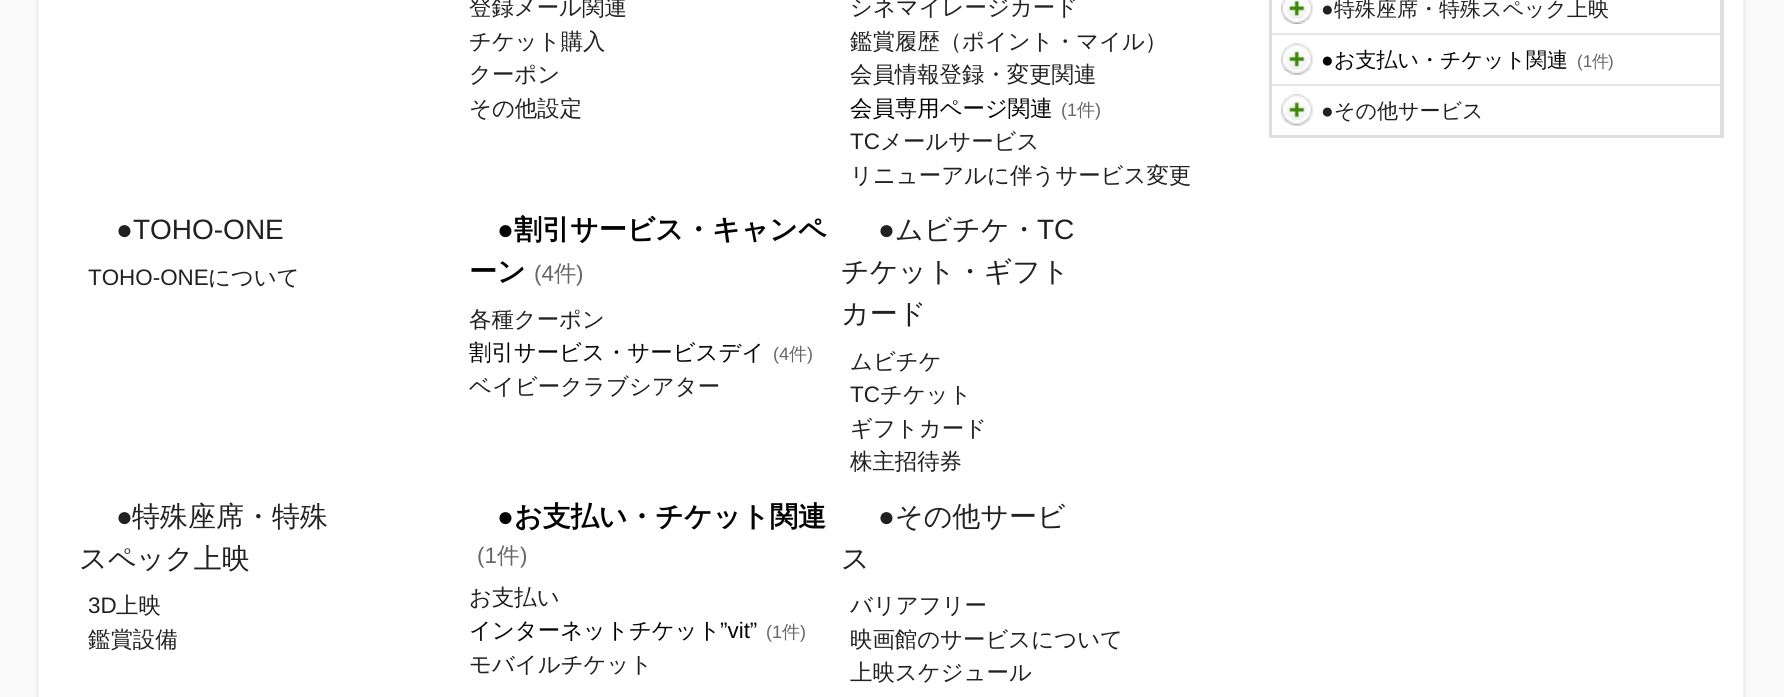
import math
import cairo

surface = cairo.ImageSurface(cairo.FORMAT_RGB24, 1784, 697)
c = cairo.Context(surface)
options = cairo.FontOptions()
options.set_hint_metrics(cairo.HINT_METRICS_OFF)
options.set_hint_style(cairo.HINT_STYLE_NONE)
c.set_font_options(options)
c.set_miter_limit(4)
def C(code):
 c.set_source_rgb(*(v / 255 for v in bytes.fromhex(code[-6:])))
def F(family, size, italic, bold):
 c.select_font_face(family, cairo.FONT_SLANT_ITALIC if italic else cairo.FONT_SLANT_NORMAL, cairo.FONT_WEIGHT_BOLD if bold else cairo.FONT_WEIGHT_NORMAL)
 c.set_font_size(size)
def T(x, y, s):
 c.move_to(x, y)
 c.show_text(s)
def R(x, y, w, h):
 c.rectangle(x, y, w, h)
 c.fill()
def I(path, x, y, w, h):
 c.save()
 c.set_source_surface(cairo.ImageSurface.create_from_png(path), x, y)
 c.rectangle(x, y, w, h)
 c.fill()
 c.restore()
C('fafafa')
c.paint()
C('ffffff')
R(39,0,1704,697)
I('1.png',1743,0,7,697)
I('2.png',35,0,4,697)
F('WenQuanYi Zen Hei Medium',22.4,0,0)
C('212121')
T(469,15,'登録メール関連')
T(469,49,'チケット購入')
T(469,82,'クーポン')
T(469,116,'その他設定')
T(850,15,'シネマイレージカード')
T(850,49,'鑑賞履歴（ポイント・マイル）')
T(850,82,'会員情報登録・変更関連')
C('030303')
T(850,116,'会員専用ページ関連')
F('Liberation Sans',18,0,0)
C('666666')
T(1061,116,'(1')
F('WenQuanYi Zen Hei Medium',18,0,0)
T(1077,116,'件')
F('Liberation Sans',18,0,0)
T(1095,116,')')
F('Liberation Sans',22.4,0,0)
C('212121')
T(850,149,'TC')
F('WenQuanYi Zen Hei Medium',22.4,0,0)
T(880,149,'メールサービス')
T(850,183,'リニューアルに伴うサービス変更')
F('Liberation Sans',28,0,0)
T(116,239,'●TOHO-ONE')
F('Liberation Sans',22.4,0,0)
T(88,285,'TOHO-ONE')
F('WenQuanYi Zen Hei Medium',22.4,0,0)
T(208,285,'について')
F('Liberation Sans',28,0,1)
C('030303')
T(497,239,'●')
F('WenQuanYi Zen Hei',28,0,1)
T(514,239,'割引サービス・キャンペ')
T(469,281,'ーン')
F('Liberation Sans',22.4,0,0)
C('666666')
T(534,281,'(4')
F('WenQuanYi Zen Hei Medium',22.4,0,0)
T(554,281,'件')
F('Liberation Sans',22.4,0,0)
T(576,281,')')
F('WenQuanYi Zen Hei Medium',22.4,0,0)
C('212121')
T(469,327,'各種クーポン')
C('030303')
T(469,360,'割引サービス・サービスデイ')
F('Liberation Sans',18,0,0)
C('666666')
T(773,360,'(4')
F('WenQuanYi Zen Hei Medium',18,0,0)
T(789,360,'件')
F('Liberation Sans',18,0,0)
T(807,360,')')
F('WenQuanYi Zen Hei Medium',22.4,0,0)
C('212121')
T(469,394,'ベイビークラブシアター')
F('Liberation Sans',28,0,0)
T(878,239,'●')
F('WenQuanYi Zen Hei Medium',28,0,0)
T(895,239,'ムビチケ・')
F('Liberation Sans',28,0,0)
T(1037,239,'TC')
F('WenQuanYi Zen Hei Medium',28,0,0)
T(841,281,'チケット・ギフト')
T(841,323,'カード')
F('WenQuanYi Zen Hei Medium',22.4,0,0)
T(850,369,'ムビチケ')
F('Liberation Sans',22.4,0,0)
T(850,402,'TC')
F('WenQuanYi Zen Hei Medium',22.4,0,0)
T(880,402,'チケット')
T(850,436,'ギフトカード')
T(850,469,'株主招待券')
F('Liberation Sans',28,0,0)
T(116,526,'●')
F('WenQuanYi Zen Hei Medium',28,0,0)
T(132,526,'特殊座席・特殊')
T(79,568,'スペック上映')
F('Liberation Sans',22.4,0,0)
T(88,613,'3D')
F('WenQuanYi Zen Hei Medium',22.4,0,0)
T(116,613,'上映')
T(88,647,'鑑賞設備')
F('Liberation Sans',28,0,1)
C('030303')
T(497,526,'●')
F('WenQuanYi Zen Hei',28,0,1)
T(514,526,'お支払い・チケット関連')
F('Liberation Sans',22.4,0,0)
C('666666')
T(477,563,'(1')
F('WenQuanYi Zen Hei Medium',22.4,0,0)
T(497,563,'件')
F('Liberation Sans',22.4,0,0)
T(520,563,')')
F('WenQuanYi Zen Hei Medium',22.4,0,0)
C('212121')
T(469,605,'お支払い')
C('030303')
T(469,638,'インターネットチケット')
F('Liberation Sans',22.4,0,0)
T(720,638,'”vit”')
F('Liberation Sans',18,0,0)
C('666666')
T(766,638,'(1')
F('WenQuanYi Zen Hei Medium',18,0,0)
T(782,638,'件')
F('Liberation Sans',18,0,0)
T(800,638,')')
F('WenQuanYi Zen Hei Medium',22.4,0,0)
C('212121')
T(469,672,'モバイルチケット')
F('Liberation Sans',28,0,0)
T(878,526,'●')
F('WenQuanYi Zen Hei Medium',28,0,0)
T(895,526,'その他サービ')
T(841,568,'ス')
F('WenQuanYi Zen Hei Medium',22.4,0,0)
T(850,613,'バリアフリー')
T(850,647,'映画館のサービスについて')
T(850,680,'上映スケジュール')
C('dedede')
R(1269,0,455,138)
C('ffffff')
R(1272,0,448,135)
I('3.png',1281,0,32,24)
F('Liberation Sans',21,0,0)
C('212121')
T(1321,16,'●')
F('WenQuanYi Zen Hei Medium',21,0,0)
T(1334,16,'特殊座席・特殊スペック上映')
C('e6e6e6')
R(1272,33,448,2)
I('4.png',1281,43,32,32)
F('Liberation Sans',21,0,0)
C('030303')
T(1321,67,'●')
F('WenQuanYi Zen Hei Medium',21,0,0)
T(1334,67,'お支払い・チケット関連')
F('Liberation Sans',17,0,0)
C('666666')
T(1577,67,'(1')
F('WenQuanYi Zen Hei Medium',17,0,0)
T(1592,67,'件')
F('Liberation Sans',17,0,0)
T(1608,67,')')
C('e6e6e6')
R(1272,84,448,2)
I('5.png',1281,94,32,32)
F('Liberation Sans',21,0,0)
C('212121')
T(1321,118,'●')
F('WenQuanYi Zen Hei Medium',21,0,0)
T(1334,118,'その他サービス')
surface.write_to_png('o.png')
